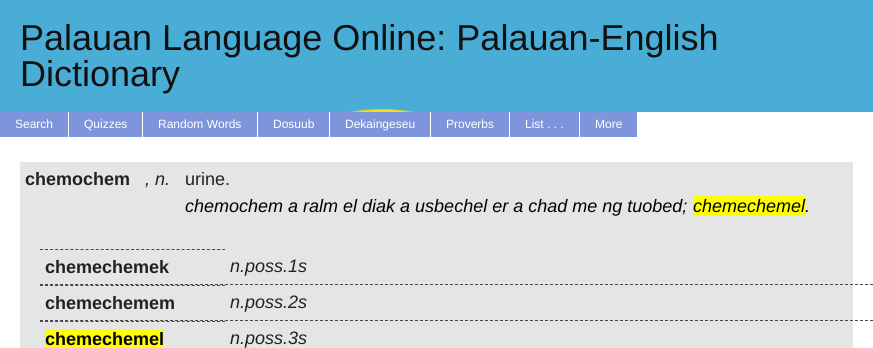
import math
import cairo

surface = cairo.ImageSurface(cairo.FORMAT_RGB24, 873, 348)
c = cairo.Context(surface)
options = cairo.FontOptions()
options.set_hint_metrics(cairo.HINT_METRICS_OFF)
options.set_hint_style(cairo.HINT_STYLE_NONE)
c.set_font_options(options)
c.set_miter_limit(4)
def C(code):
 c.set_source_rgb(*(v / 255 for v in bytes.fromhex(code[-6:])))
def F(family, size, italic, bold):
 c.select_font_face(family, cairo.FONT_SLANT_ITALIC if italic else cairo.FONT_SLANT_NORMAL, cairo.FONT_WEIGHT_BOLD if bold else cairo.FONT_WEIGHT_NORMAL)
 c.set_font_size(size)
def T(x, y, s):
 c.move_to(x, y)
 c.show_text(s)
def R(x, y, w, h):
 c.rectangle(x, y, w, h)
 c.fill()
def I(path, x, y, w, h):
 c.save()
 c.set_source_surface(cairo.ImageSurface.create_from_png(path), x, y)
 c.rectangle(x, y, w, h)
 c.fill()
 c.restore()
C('ffffff')
c.paint()
I('1.png',0,0,873,112)
F('Liberation Sans',36,0,0)
C('111111')
T(20,50,'Palauan Language Online: Palauan-English')
T(20,86,'Dictionary')
C('7f95db')
R(0,112,68,25)
F('Liberation Sans',12,0,0)
C('ffffff')
T(15,128,'Search')
C('7f95db')
R(69,112,73,25)
C('ffffff')
T(84,128,'Quizzes')
C('7f95db')
R(143,112,114,25)
C('ffffff')
T(158,128,'Random Words')
C('7f95db')
R(258,112,71,25)
C('ffffff')
T(273,128,'Dosuub')
C('7f95db')
R(330,112,100,25)
C('ffffff')
T(345,128,'Dekaingeseu')
C('7f95db')
R(431,112,78,25)
C('ffffff')
T(446,128,'Proverbs')
C('7f95db')
R(510,112,69,25)
C('ffffff')
T(525,128,'List . . .')
C('7f95db')
R(580,112,57,25)
C('ffffff')
T(595,128,'More')
C('e5e5e5')
R(20,162,833,186)
F('Liberation Sans',18,0,1)
C('222222')
T(25,185,'chemochem')
F('Liberation Sans',18,1,0)
T(145,185,', n.')
F('Liberation Sans',18,0,0)
T(185,185,'urine.')
F('Liberation Sans',18,1,0)
C('000000')
T(185,212,'chemochem a ralm el diak a usbechel er a chad me ng tuobed;')
C('ffff00')
R(693,196,112,20)
C('000000')
T(693,212,'chemechemel.')
c.new_path()
c.move_to(40,284.5)
c.line_to(873,284.5)
C('494949')
c.set_line_width(1)
c.set_dash([3,2])
c.stroke()
c.new_path()
c.move_to(40,249.5)
c.line_to(225,249.5)
c.set_dash([3,2.06])
c.stroke()
F('Liberation Sans',18,0,1)
C('222222')
T(45,273,'chemechemek')
F('Liberation Sans',18,1,0)
T(230,272,'n.poss.1s')
c.new_path()
c.move_to(40,320.5)
c.line_to(873,320.5)
C('494949')
c.set_dash([3,2])
c.stroke()
c.new_path()
c.move_to(40,285.5)
c.line_to(225,285.5)
c.set_dash([3,2.06])
c.stroke()
F('Liberation Sans',18,0,1)
C('222222')
T(45,309,'chemechemem')
F('Liberation Sans',18,1,0)
T(230,308,'n.poss.2s')
c.new_path()
c.move_to(40,321.5)
c.line_to(225,321.5)
C('494949')
c.stroke()
C('ffff00')
R(45,329,119,19)
F('Liberation Sans',18,0,1)
C('000000')
T(45,345,'chemechemel')
F('Liberation Sans',18,1,0)
C('222222')
T(230,344,'n.poss.3s')
surface.write_to_png('o.png')
